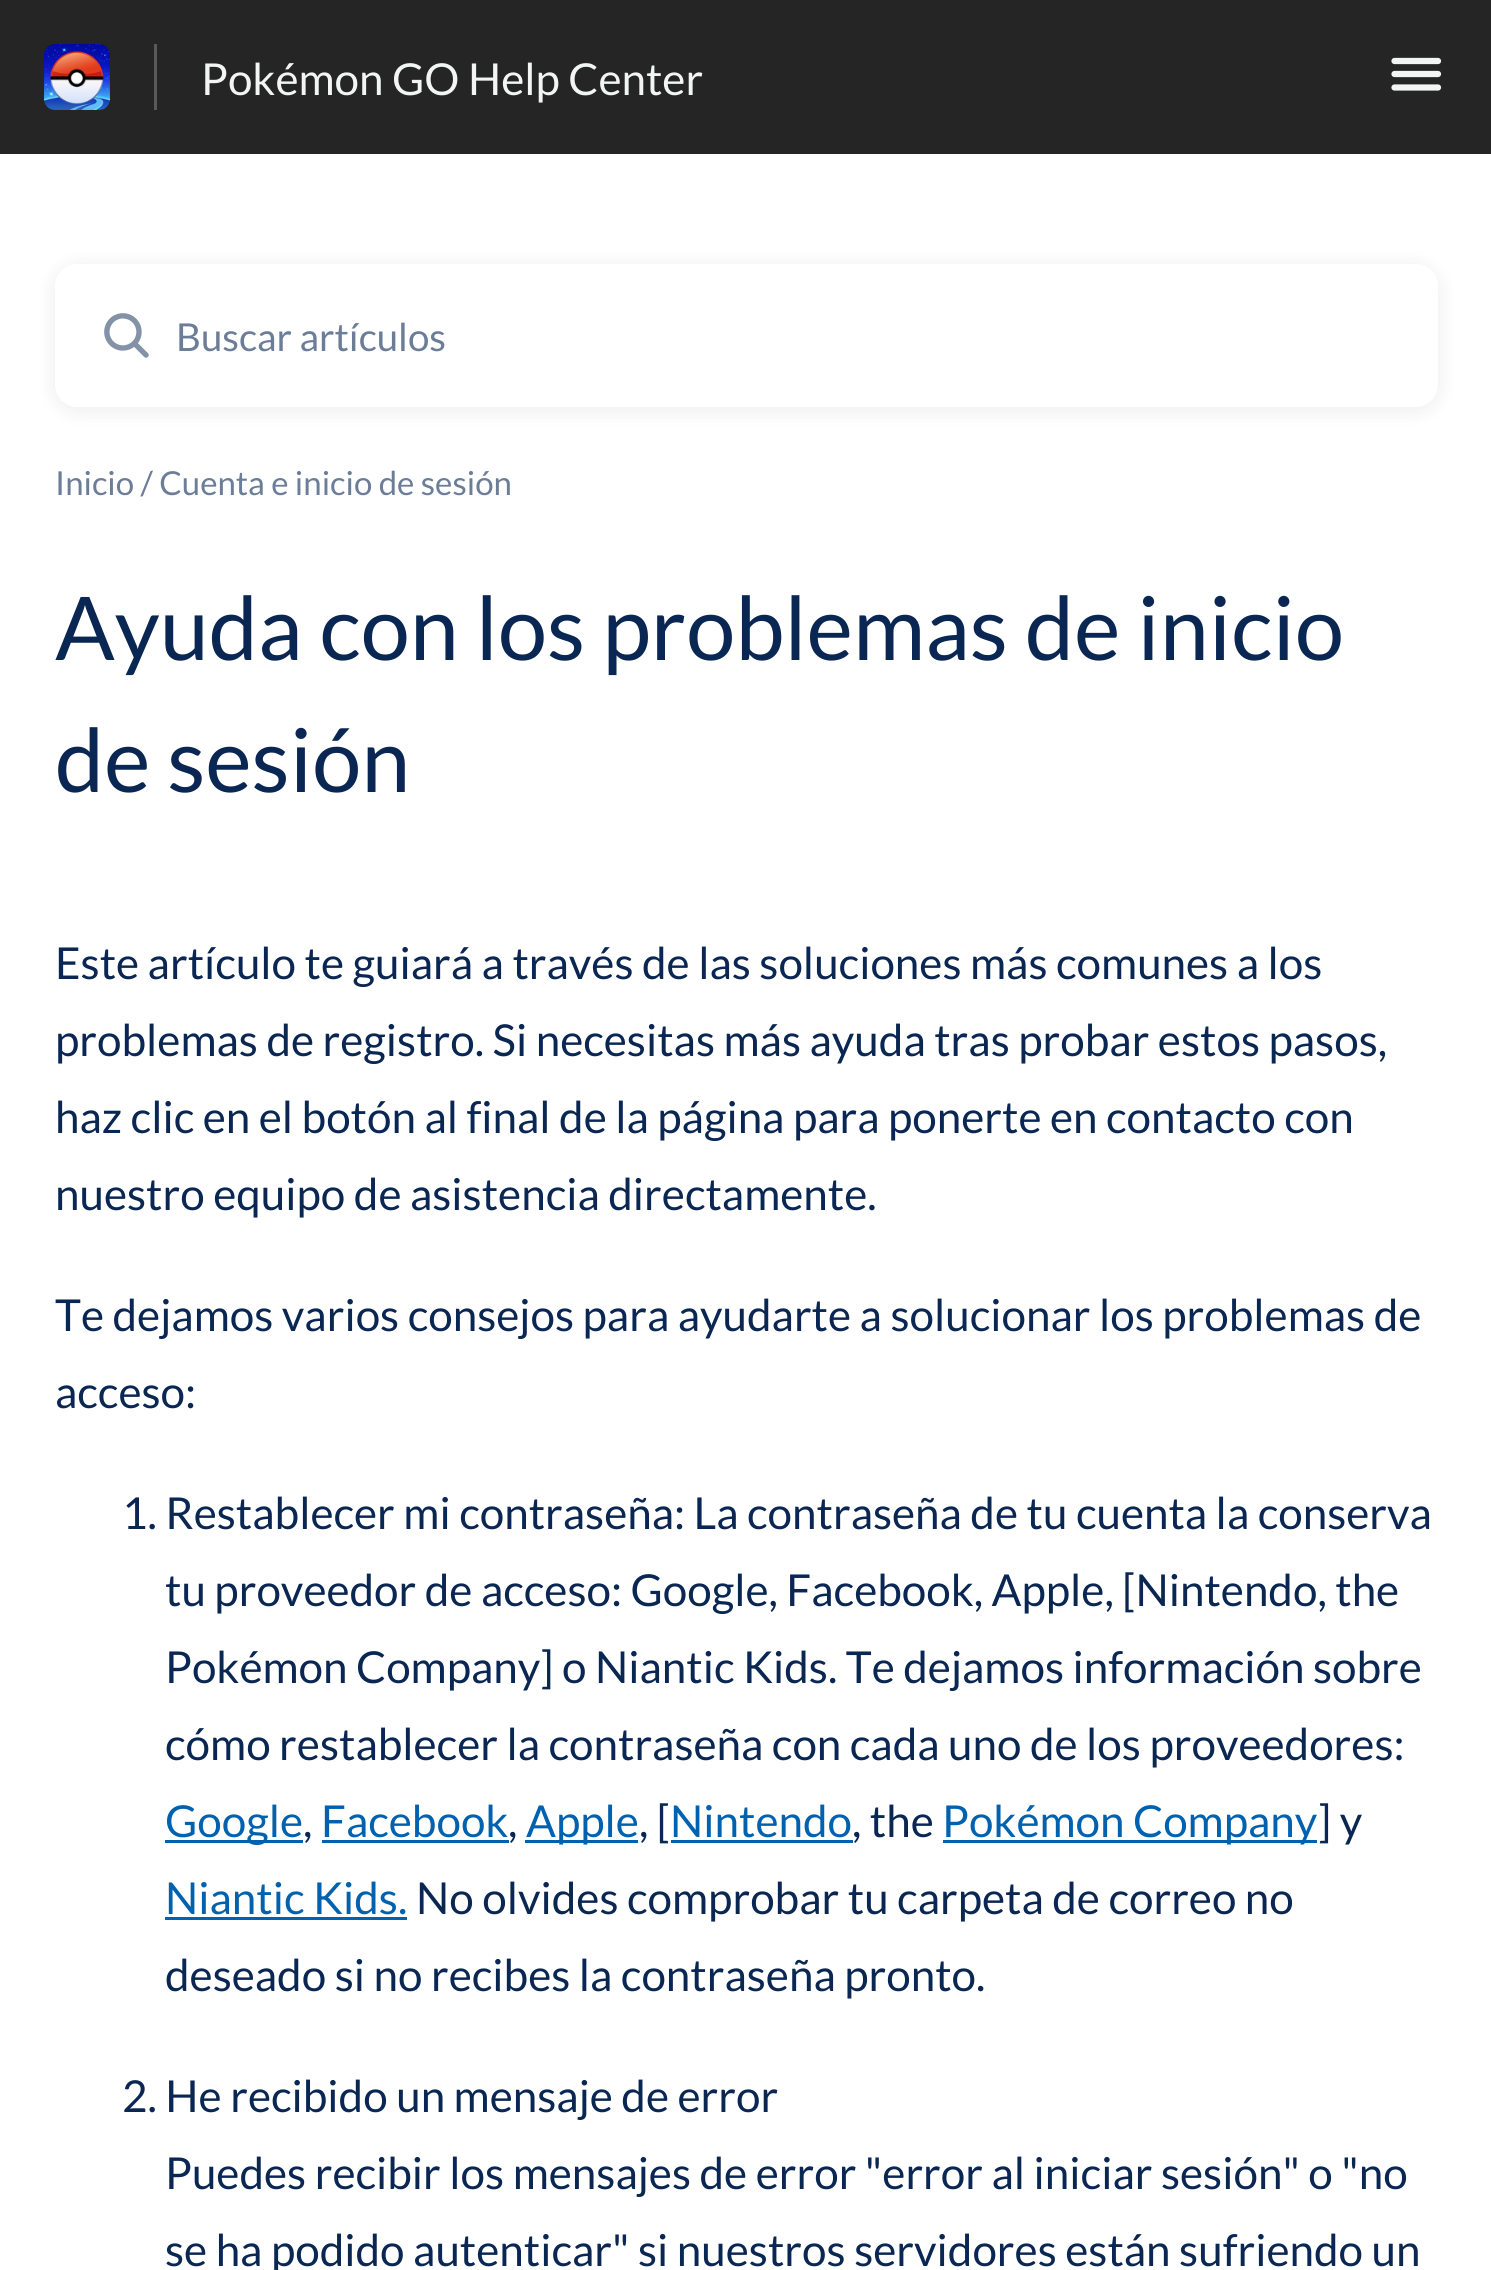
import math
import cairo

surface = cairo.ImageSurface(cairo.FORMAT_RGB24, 1491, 2270)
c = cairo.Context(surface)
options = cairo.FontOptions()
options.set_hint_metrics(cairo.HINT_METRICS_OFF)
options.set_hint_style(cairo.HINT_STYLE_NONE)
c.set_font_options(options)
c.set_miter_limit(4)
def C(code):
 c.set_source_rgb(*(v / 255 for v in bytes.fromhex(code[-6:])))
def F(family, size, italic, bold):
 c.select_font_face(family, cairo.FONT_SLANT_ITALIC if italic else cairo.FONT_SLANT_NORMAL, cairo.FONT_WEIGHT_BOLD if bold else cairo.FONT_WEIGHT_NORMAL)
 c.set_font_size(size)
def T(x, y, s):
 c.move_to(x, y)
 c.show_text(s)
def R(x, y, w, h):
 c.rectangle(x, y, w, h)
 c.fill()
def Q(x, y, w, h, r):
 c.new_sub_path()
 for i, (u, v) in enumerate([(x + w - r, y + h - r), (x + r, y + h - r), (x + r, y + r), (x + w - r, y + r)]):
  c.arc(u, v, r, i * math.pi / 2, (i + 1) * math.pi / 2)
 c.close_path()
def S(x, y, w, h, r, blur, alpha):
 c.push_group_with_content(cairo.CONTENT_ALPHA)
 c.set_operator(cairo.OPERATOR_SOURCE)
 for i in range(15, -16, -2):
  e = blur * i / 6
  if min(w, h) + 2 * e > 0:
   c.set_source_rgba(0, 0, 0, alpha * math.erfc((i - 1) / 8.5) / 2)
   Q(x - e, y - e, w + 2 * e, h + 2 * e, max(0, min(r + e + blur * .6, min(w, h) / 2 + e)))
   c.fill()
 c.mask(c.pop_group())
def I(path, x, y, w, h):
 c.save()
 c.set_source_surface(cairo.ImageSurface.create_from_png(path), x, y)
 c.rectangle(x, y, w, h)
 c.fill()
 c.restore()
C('ffffff')
c.paint()
C('252525')
R(0,0,1491,154)
C('595959')
R(154,44,3,66)
I('1.png',44,44,66,66)
F('Lato',44,0,0)
C('f3f4f4')
T(201,95,'Pokémon GO Help Center')
c.new_path()
c.move_to(1394.5,61)
c.line_to(1438,61)
c.move_to(1394.5,74)
c.line_to(1438,74)
c.move_to(1394.5,87.5)
c.line_to(1438,87.5)
c.set_line_width(6.2)
c.set_line_cap(cairo.LINE_CAP_ROUND)
c.stroke()
C('000000')
S(55,267,1383,143,22,11,.08)
C('ffffff')
Q(55,264,1383,143,22)
c.fill()
I('2.png',104,313,45,45)
F('Lato',38.5,0,0)
C('6c7d97')
T(176,351,'Buscar artículos')
F('Lato',33,0,0)
T(55,495,'Inicio / Cuenta e inicio de sesión')
F('Lato',88,0,0)
C('0a2652')
T(55,660,'Ayuda con los problemas de inicio')
T(55,792,'de sesión')
F('Lato',44,0,0)
T(55,979,'Este artículo te guiará a través de las soluciones más comunes a los')
T(55,1056,'problemas de registro. Si necesitas más ayuda tras probar estos pasos,')
T(55,1133,'haz clic en el botón al final de la página para ponerte en contacto con')
T(55,1210,'nuestro equipo de asistencia directamente.')
T(55,1331,'Te dejamos varios consejos para ayudarte a solucionar los problemas de')
T(55,1408,'acceso:')
T(122,1529,'1. Restablecer mi contraseña: La contraseña de tu cuenta la conserva')
T(165,1606,'tu proveedor de acceso: Google, Facebook, Apple, [Nintendo, the')
T(165,1683,'Pokémon Company] o Niantic Kids. Te dejamos información sobre')
T(165,1760,'cómo restablecer la contraseña con cada uno de los proveedores:')
C('0061af')
R(165,1840,138,3)
T(165,1837,'Google')
C('0a2652')
T(303,1837,',')
C('0061af')
T(321,1837,'Facebook')
R(322,1840,187,3)
C('0a2652')
T(508,1837,',')
C('0061af')
R(525,1840,113,3)
T(526,1837,'Apple')
C('0a2652')
T(639,1837,', [')
C('0061af')
T(670,1837,'Nintendo')
R(671,1840,182,3)
C('0a2652')
T(852,1837,', the')
C('0061af')
R(943,1840,374,3)
T(942,1837,'Pokémon Company')
C('0a2652')
T(1318,1837,'] y')
C('0061af')
T(165,1914,'Niantic Kids.')
R(165,1917,242,3)
C('0a2652')
T(416,1914,'No olvides comprobar tu carpeta de correo no')
T(165,1991,'deseado si no recibes la contraseña pronto.')
T(122,2112,'2. He recibido un mensaje de error')
T(165,2189,'Puedes recibir los mensajes de error "error al iniciar sesión" o "no')
T(165,2266,'se ha podido autenticar" si nuestros servidores están sufriendo un')
surface.write_to_png('o.png')
